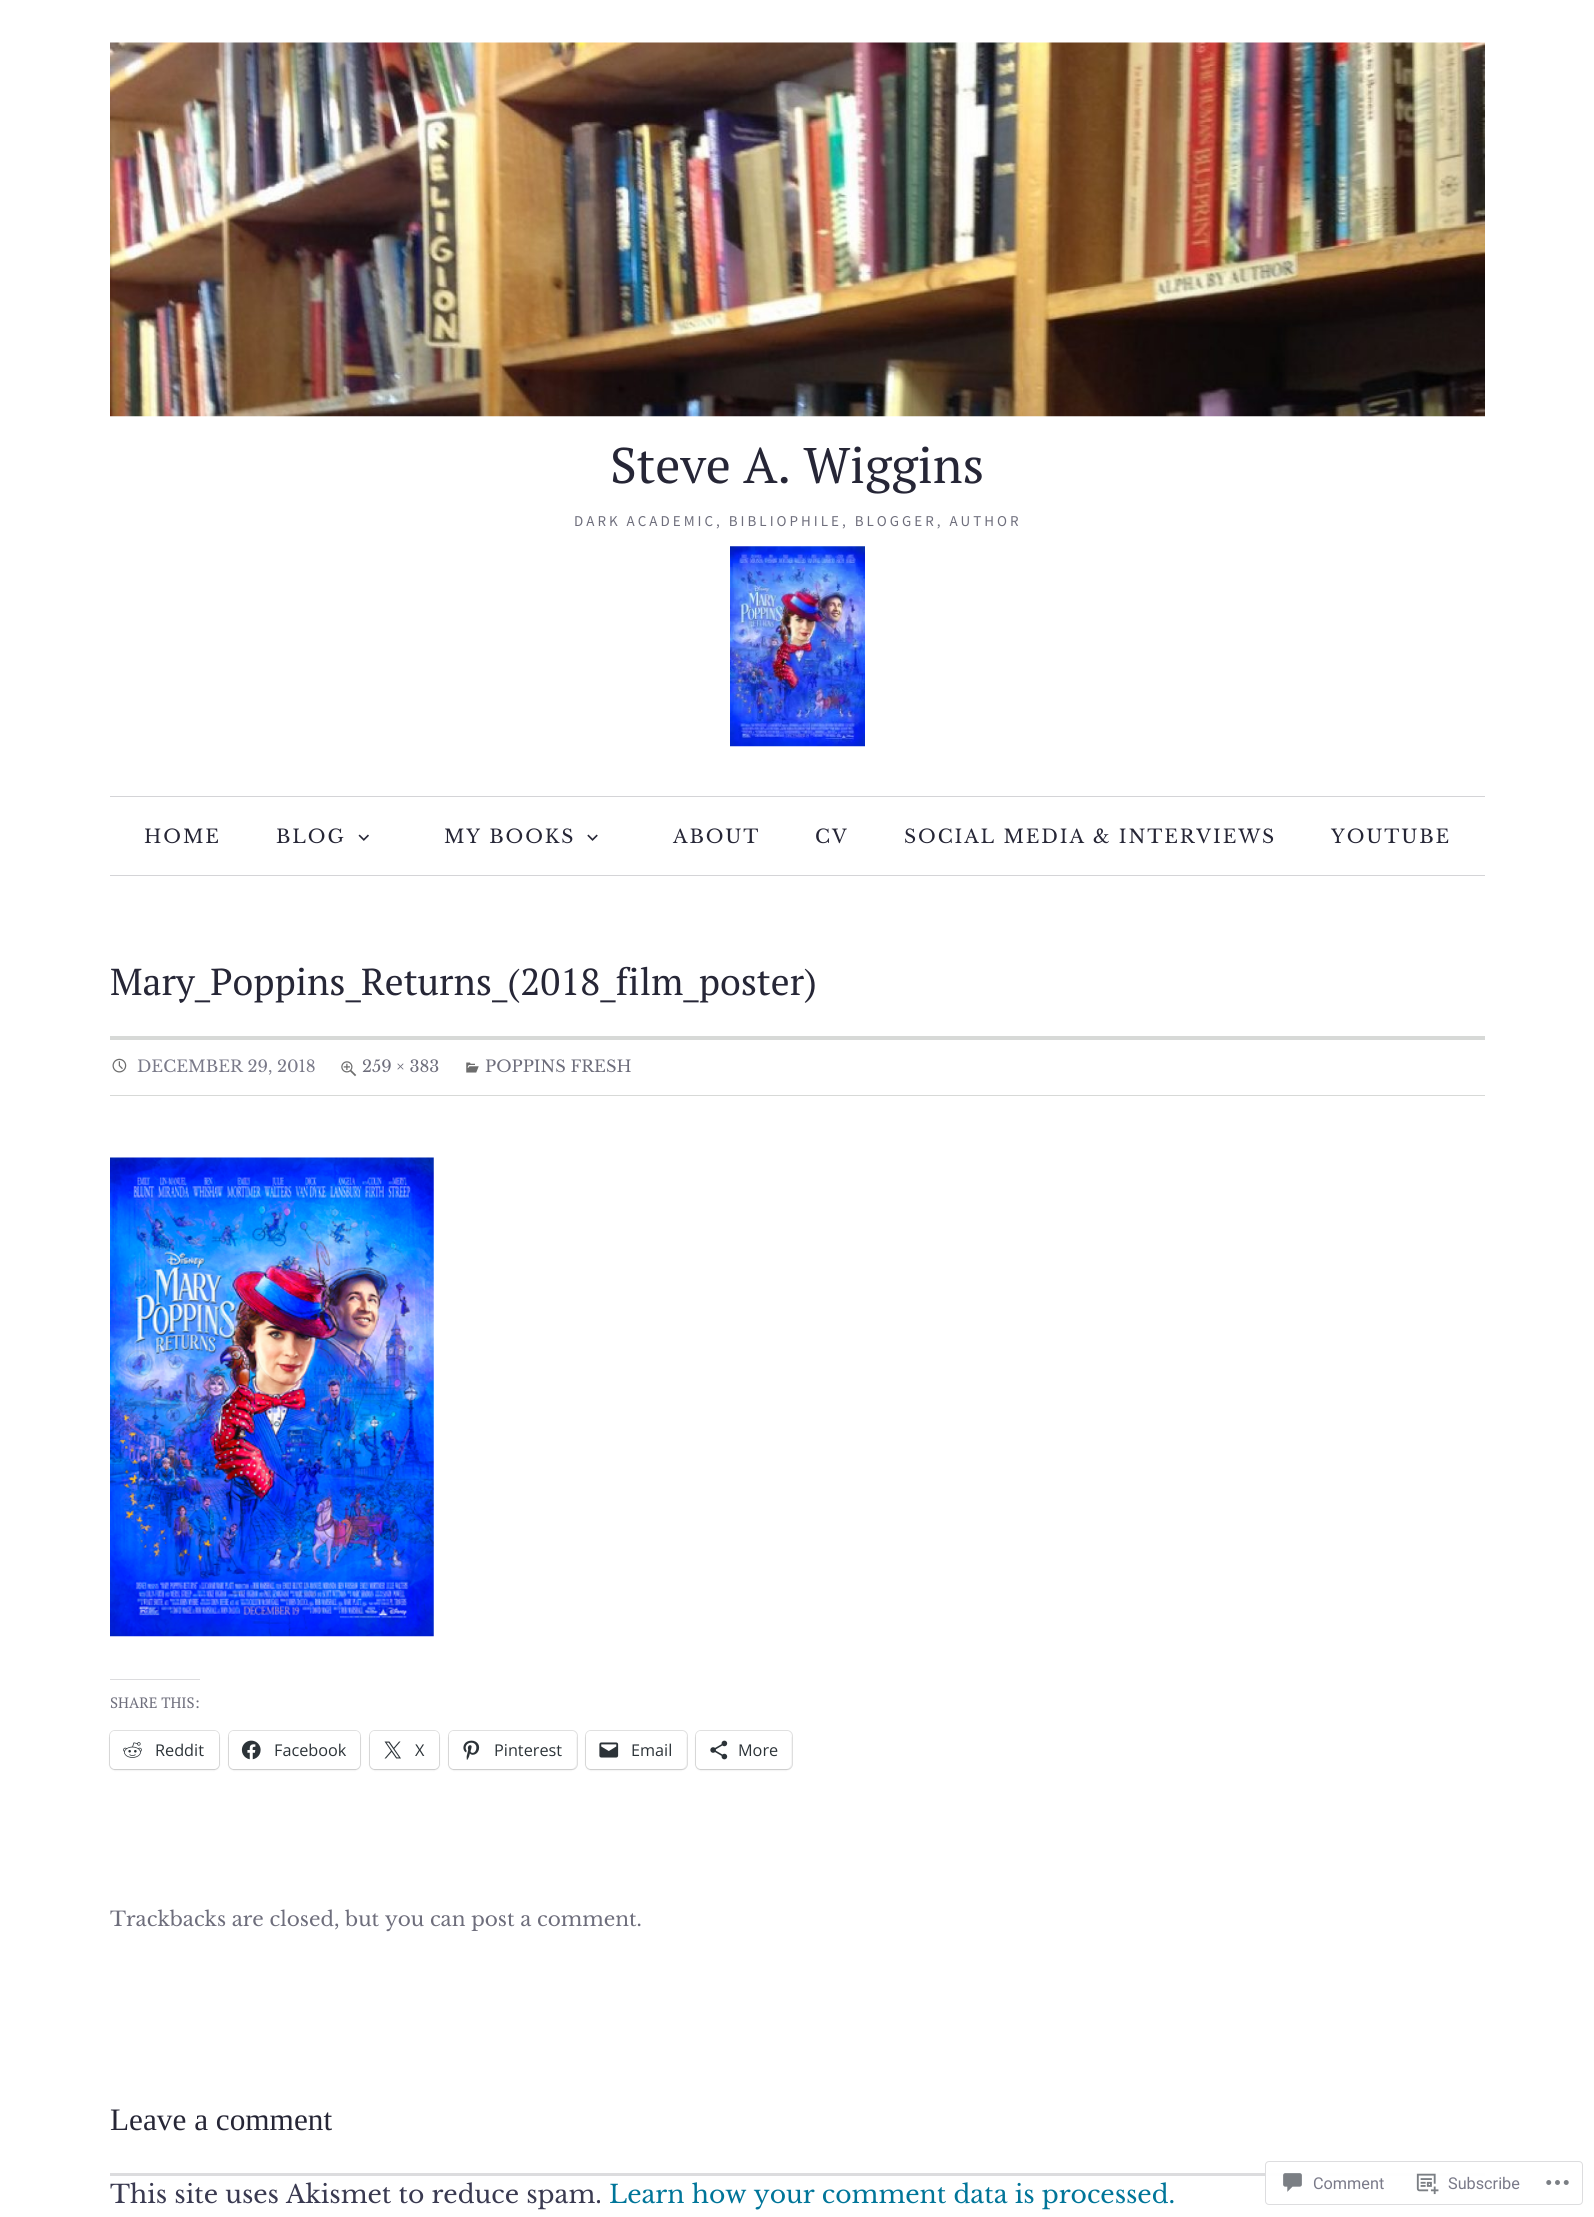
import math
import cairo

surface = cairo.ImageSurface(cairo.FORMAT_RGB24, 1594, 2217)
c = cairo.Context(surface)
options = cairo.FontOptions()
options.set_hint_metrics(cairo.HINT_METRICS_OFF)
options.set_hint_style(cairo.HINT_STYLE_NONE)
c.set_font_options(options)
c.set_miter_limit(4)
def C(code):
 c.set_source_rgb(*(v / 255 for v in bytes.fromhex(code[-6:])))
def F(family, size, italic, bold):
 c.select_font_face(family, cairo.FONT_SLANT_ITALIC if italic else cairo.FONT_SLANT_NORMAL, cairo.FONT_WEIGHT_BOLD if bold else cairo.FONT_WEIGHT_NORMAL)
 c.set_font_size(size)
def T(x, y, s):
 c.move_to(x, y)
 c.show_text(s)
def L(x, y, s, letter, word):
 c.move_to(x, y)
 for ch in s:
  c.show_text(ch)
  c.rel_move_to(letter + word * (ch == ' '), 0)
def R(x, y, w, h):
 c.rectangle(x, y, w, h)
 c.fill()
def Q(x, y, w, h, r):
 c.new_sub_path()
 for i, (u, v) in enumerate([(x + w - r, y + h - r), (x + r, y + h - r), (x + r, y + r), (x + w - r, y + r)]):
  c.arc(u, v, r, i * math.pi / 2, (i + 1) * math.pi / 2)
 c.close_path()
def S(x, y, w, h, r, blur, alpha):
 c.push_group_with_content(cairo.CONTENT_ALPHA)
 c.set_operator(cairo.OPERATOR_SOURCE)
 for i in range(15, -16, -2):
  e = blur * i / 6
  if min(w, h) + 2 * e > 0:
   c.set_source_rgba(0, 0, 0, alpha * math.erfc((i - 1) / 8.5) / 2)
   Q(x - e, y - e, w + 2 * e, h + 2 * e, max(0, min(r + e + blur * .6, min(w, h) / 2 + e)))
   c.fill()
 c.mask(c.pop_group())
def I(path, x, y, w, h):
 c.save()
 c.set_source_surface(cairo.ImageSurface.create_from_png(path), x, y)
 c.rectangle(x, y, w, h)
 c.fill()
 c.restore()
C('ffffff')
c.paint()
I('1.png',110,42,1375,375)
F('PT Serif',50,0,0)
C('262636')
T(610,483,'Steve A. Wiggins')
F('Source Sans Pro',15,0,0)
C('6e6e7c')
L(574,526,'DARK ACADEMIC, BIBLIOPHILE, BLOGGER, AUTHOR',3,0)
I('2.png',730,546,135,201)
C('d4d4d7')
R(110,796,1375,1)
R(110,875,1375,1)
F('Libre Baskerville',18.75,0,0)
C('262636')
L(144,843,'HOME',1.9,0)
L(276,843,'BLOG',1.9,0)
I('3.png',358,834,11,7)
L(444,843,'MY BOOKS',1.9,0)
I('4.png',587,834,11,7)
L(673,843,'ABOUT',1.9,0)
L(815,843,'CV',1.9,0)
L(904,843,'SOCIAL MEDIA & INTERVIEWS',1.9,0)
L(1331,843,'YOUTUBE',1.9,0)
F('PT Serif',37.5,0,0)
T(110,995,'Mary_Poppins_Returns_(2018_film_poster)')
C('d7d9d7')
R(110,1036,1375,4)
R(110,1095,1375,1)
I('5.png',112,1058,15,15)
F('Libre Baskerville',16.25,0,0)
C('7a7a89')
T(137,1072,'DECEMBER 29, 2018')
I('6.png',341,1061,16,16)
C('6e6e7c')
T(362,1072,'259 × 383')
I('7.png',466,1062,13,11)
T(485,1072,'POPPINS FRESH')
I('8.png',110,1157,324,480)
C('dcdcde')
R(110,1679,90,1)
F('PT Serif',15,0,0)
C('6e6e7c')
T(110,1708,'SHARE THIS:')
Q(109.5,1730.5,110,39,5.5)
C('e0e0e0')
c.set_line_width(1)
c.stroke()
C('000000')
S(110,1733,109,37,5,1,.12)
C('ffffff')
Q(110,1731,109,38,5)
c.fill()
I('9.png',123,1742,19,16)
F('Open Sans',16.25,0,0)
C('2c3338')
T(155,1756,'Reddit')
Q(228.5,1730.5,132,39,5.5)
C('e0e0e0')
c.stroke()
C('000000')
S(229,1733,131,37,5,1,.12)
C('ffffff')
Q(229,1731,131,38,5)
c.fill()
I('10.png',241,1740,20,20)
C('2c3338')
T(274,1756,'Facebook')
Q(369.5,1730.5,70,39,5.5)
C('e0e0e0')
c.stroke()
C('000000')
S(370,1733,69,37,5,1,.12)
C('ffffff')
Q(370,1731,69,38,5)
c.fill()
I('11.png',384,1741,17,18)
C('2c3338')
T(415,1756,'X')
Q(448.5,1730.5,129,39,5.5)
C('e0e0e0')
c.stroke()
C('000000')
S(449,1733,127,37,5,1,.12)
C('ffffff')
Q(449,1731,127,38,5)
c.fill()
I('12.png',463,1740,17,20)
C('2c3338')
T(494,1756,'Pinterest')
Q(585.5,1730.5,102,39,5.5)
C('e0e0e0')
c.stroke()
C('000000')
S(586,1733,100,37,5,1,.12)
C('ffffff')
Q(586,1731,100,38,5)
c.fill()
I('13.png',599,1742,20,16)
C('2c3338')
T(631,1756,'Email')
Q(695.5,1730.5,97,39,5.5)
C('e0e0e0')
c.stroke()
C('000000')
S(696,1733,95,37,5,1,.12)
C('ffffff')
Q(696,1731,95,38,5)
c.fill()
I('14.png',710,1740,18,20)
C('2c3338')
T(738,1756,'More')
F('Libre Baskerville',20,0,0)
C('6e6e7c')
T(110,1926,'Trackbacks are closed, but you can post a comment.')
F('Liberation Serif',31.25,0,0)
C('262636')
T(110,2130,'Leave a comment')
C('dcdcde')
R(110,2173,1375,3)
F('Libre Baskerville',25,0,0)
C('3a3a51')
T(110,2203,'This site uses Akismet to reduce spam.')
C('007599')
T(609,2203,'Learn how your comment data is processed.')
c.set_source_rgba(1,1,1,0.98)
Q(1265.5,2161.5,317,43,3.5)
c.fill_preserve()
C('dddddf')
c.stroke()
I('15.png',1283,2173,19,19)
F('Roboto',16.25,0,0)
C('7a7a89')
T(1313,2189,'Comment')
I('16.png',1416,2173,23,22)
T(1448,2189,'Subscribe')
I('17.png',1546,2180,23,5)
surface.write_to_png('o.png')
